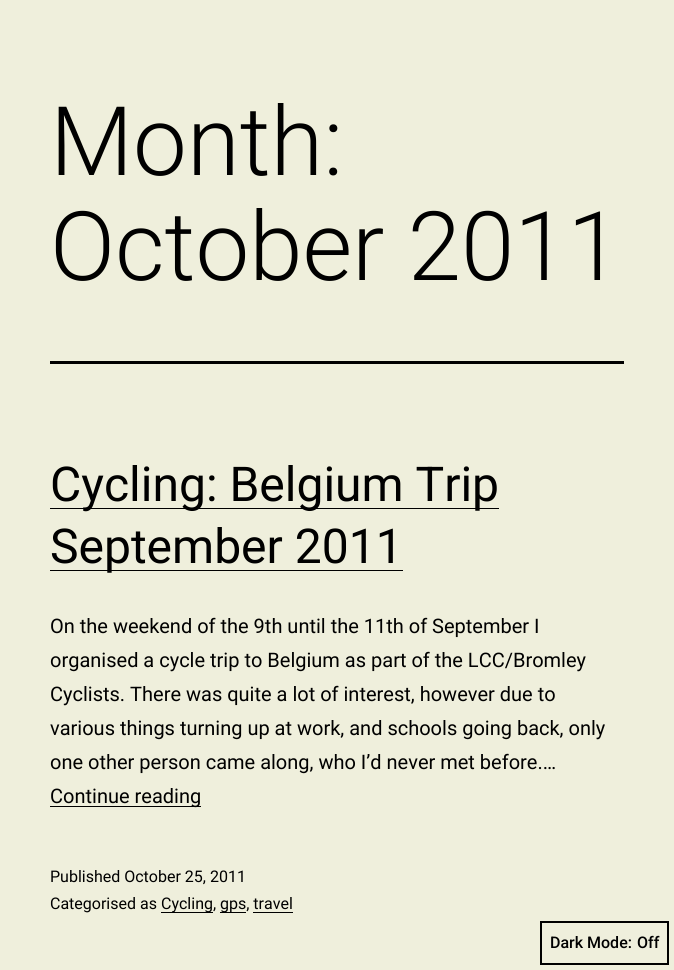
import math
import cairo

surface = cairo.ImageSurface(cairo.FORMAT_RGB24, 674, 970)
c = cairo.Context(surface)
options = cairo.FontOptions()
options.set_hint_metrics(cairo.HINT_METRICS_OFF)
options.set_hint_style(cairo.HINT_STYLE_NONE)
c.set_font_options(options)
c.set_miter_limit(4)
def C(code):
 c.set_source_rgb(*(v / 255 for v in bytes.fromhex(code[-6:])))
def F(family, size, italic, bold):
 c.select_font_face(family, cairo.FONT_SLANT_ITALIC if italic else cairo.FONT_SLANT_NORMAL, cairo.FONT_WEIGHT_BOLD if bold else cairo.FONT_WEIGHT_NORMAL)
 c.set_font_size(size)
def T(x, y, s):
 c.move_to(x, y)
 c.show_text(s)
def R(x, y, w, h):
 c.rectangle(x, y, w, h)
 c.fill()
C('efefdc')
c.paint()
C('000000')
R(50,361,574,3)
F('Roboto Light',96,0,0)
T(50,175,'Month:')
T(50,280,'October 2011')
R(50,508,449,1)
F('Roboto',48,0,0)
T(50,501,'Cycling: Belgium Trip')
R(50,570,353,1)
T(50,563,'September 2011')
F('Roboto',20,0,0)
T(50,633,'On the weekend of the 9th until the 11th of September I')
T(50,667,'organised a cycle trip to Belgium as part of the LCC/Bromley')
T(50,701,'Cyclists. There was quite a lot of interest, however due to')
T(50,735,'various things turning up at work, and schools going back, only')
T(50,769,'one other person came along, who I’d never met before.…')
R(50,806,151,1)
T(50,803,'Continue reading')
F('Roboto',16,0,0)
T(50,882,'Published October 25, 2011')
T(50,909,'Categorised as')
R(161,912,52,1)
T(161,909,'Cycling,')
R(220,912,26,1)
T(220,909,'gps, travel')
R(253,912,40,1)
c.rectangle(541,922,127,42)
c.stroke()
F('Roboto Medium',16,0,0)
T(550,948,'Dark Mode:')
T(637,948,'Off')
surface.write_to_png('o.png')
